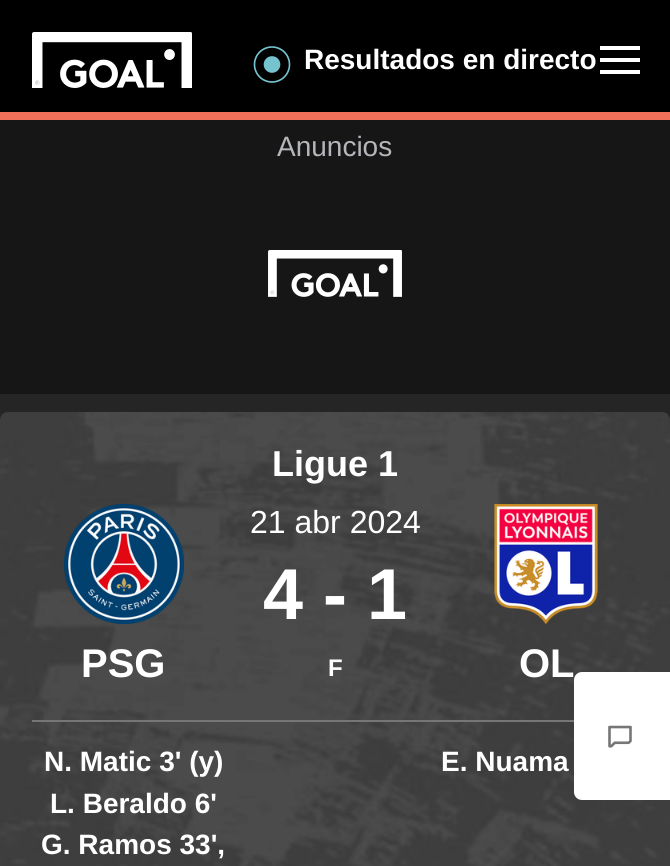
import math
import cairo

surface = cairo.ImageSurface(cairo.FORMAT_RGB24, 670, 866)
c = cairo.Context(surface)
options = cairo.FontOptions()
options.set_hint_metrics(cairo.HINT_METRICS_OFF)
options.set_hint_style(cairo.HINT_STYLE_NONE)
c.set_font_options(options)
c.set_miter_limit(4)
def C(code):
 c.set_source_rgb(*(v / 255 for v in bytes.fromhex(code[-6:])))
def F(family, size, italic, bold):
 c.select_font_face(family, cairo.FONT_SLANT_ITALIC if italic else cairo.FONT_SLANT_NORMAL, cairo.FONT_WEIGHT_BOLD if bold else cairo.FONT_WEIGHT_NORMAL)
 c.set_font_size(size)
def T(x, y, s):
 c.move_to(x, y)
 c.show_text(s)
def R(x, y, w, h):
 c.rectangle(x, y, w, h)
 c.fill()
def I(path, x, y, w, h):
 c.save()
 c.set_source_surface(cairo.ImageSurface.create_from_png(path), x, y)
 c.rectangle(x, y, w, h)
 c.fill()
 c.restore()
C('252525')
c.paint()
C('000000')
R(0,0,670,112)
C('f0705a')
R(0,112,670,8)
I('1.png',32,32,160,56)
I('2.png',253,46,38,37)
F('Liberation Sans',28,0,1)
C('ffffff')
T(304,69,'Resultados en directo')
R(600,46,40,4)
R(600,58,40,4)
R(600,70,40,4)
C('161617')
R(0,120,670,274)
F('Liberation Sans',28,0,0)
C('b5b6ba')
T(277,156,'Anuncios')
I('3.png',268,250,134,47)
I('4.png',0,412,670,454)
F('Liberation Sans',36,0,1)
C('ffffff')
T(272,476,'Ligue 1')
I('5.png',64,504,120,120)
F('Liberation Sans',40,0,1)
T(81,677,'PSG')
F('Liberation Sans',32,0,0)
T(250,533,'21 abr 2024')
F('Liberation Sans',72,0,1)
T(263,619,'4 - 1')
F('Liberation Sans',24,0,1)
T(328,676,'F')
I('6.png',494,504,104,120)
F('Liberation Sans',40,0,1)
T(519,677,'OL')
C('767676')
R(32,720,542,2)
F('Liberation Sans',28,0,1)
C('ffffff')
T(44,771,'N. Matic 3\' (y)')
T(50,813,'L. Beraldo 6\'')
T(41,854,'G. Ramos 33\',')
T(441,771,'E. Nuama')
c.new_path()
c.move_to(582,672)
c.line_to(670,672)
c.line_to(670,800)
c.line_to(582,800)
c.curve_to(577.5,800,574,796.5,574,792)
c.line_to(574,680)
c.curve_to(574,675.5,577.5,672,582,672)
c.close_path()
c.fill()
I('7.png',608,725,24,23)
surface.write_to_png('o.png')
